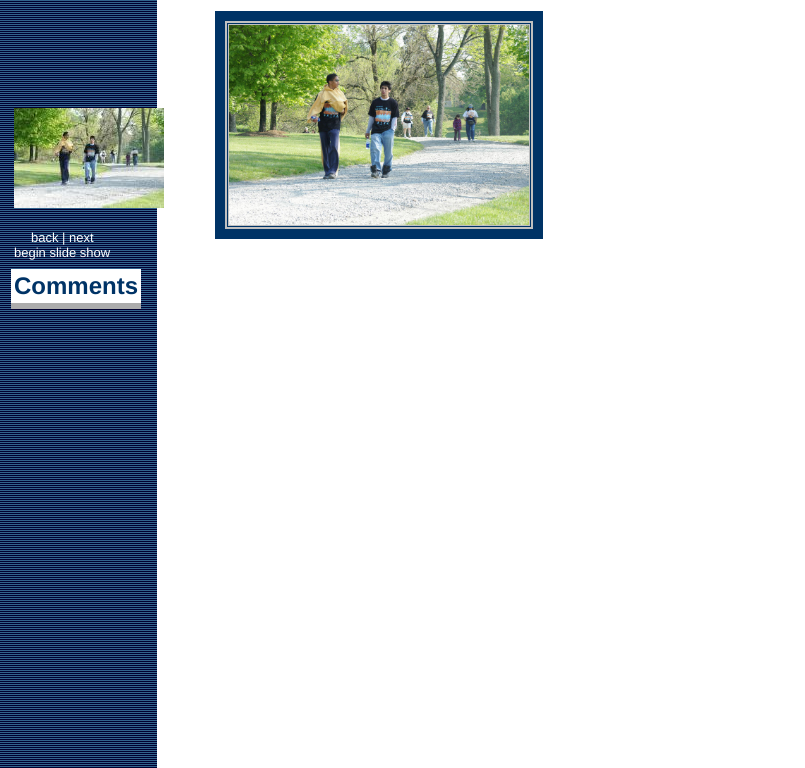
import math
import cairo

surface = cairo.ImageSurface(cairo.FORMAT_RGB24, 805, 768)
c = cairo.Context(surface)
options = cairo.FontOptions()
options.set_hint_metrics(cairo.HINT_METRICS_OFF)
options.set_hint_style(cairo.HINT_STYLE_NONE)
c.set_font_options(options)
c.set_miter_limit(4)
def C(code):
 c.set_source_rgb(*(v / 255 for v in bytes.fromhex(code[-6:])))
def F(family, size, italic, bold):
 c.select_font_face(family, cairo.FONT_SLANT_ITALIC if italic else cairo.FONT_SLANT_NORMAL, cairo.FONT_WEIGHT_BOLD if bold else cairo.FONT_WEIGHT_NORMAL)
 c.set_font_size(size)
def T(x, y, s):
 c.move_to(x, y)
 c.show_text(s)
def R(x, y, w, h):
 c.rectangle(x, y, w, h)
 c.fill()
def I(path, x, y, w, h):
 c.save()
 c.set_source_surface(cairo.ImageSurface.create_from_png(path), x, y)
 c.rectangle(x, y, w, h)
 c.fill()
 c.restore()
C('ffffff')
c.paint()
I('1.png',0,0,157,768)
C('c0c0c0')
c.rectangle(220,16,318,218)
c.fill_preserve()
C('003366')
c.set_line_width(10)
c.stroke()
c.rectangle(227.5,23.5,303,203)
c.set_line_width(1)
c.stroke()
I('2.png',229,25,300,200)
I('3.png',14,108,150,100)
F('Liberation Sans',13,0,0)
C('ffffff')
T(31,242,'back | next')
T(14,257,'begin slide show')
R(11,269,130,34)
F('Liberation Sans',24,0,1)
C('003366')
T(14,294,'Comments')
C('acacac')
R(11,303,130,6)
surface.write_to_png('o.png')
